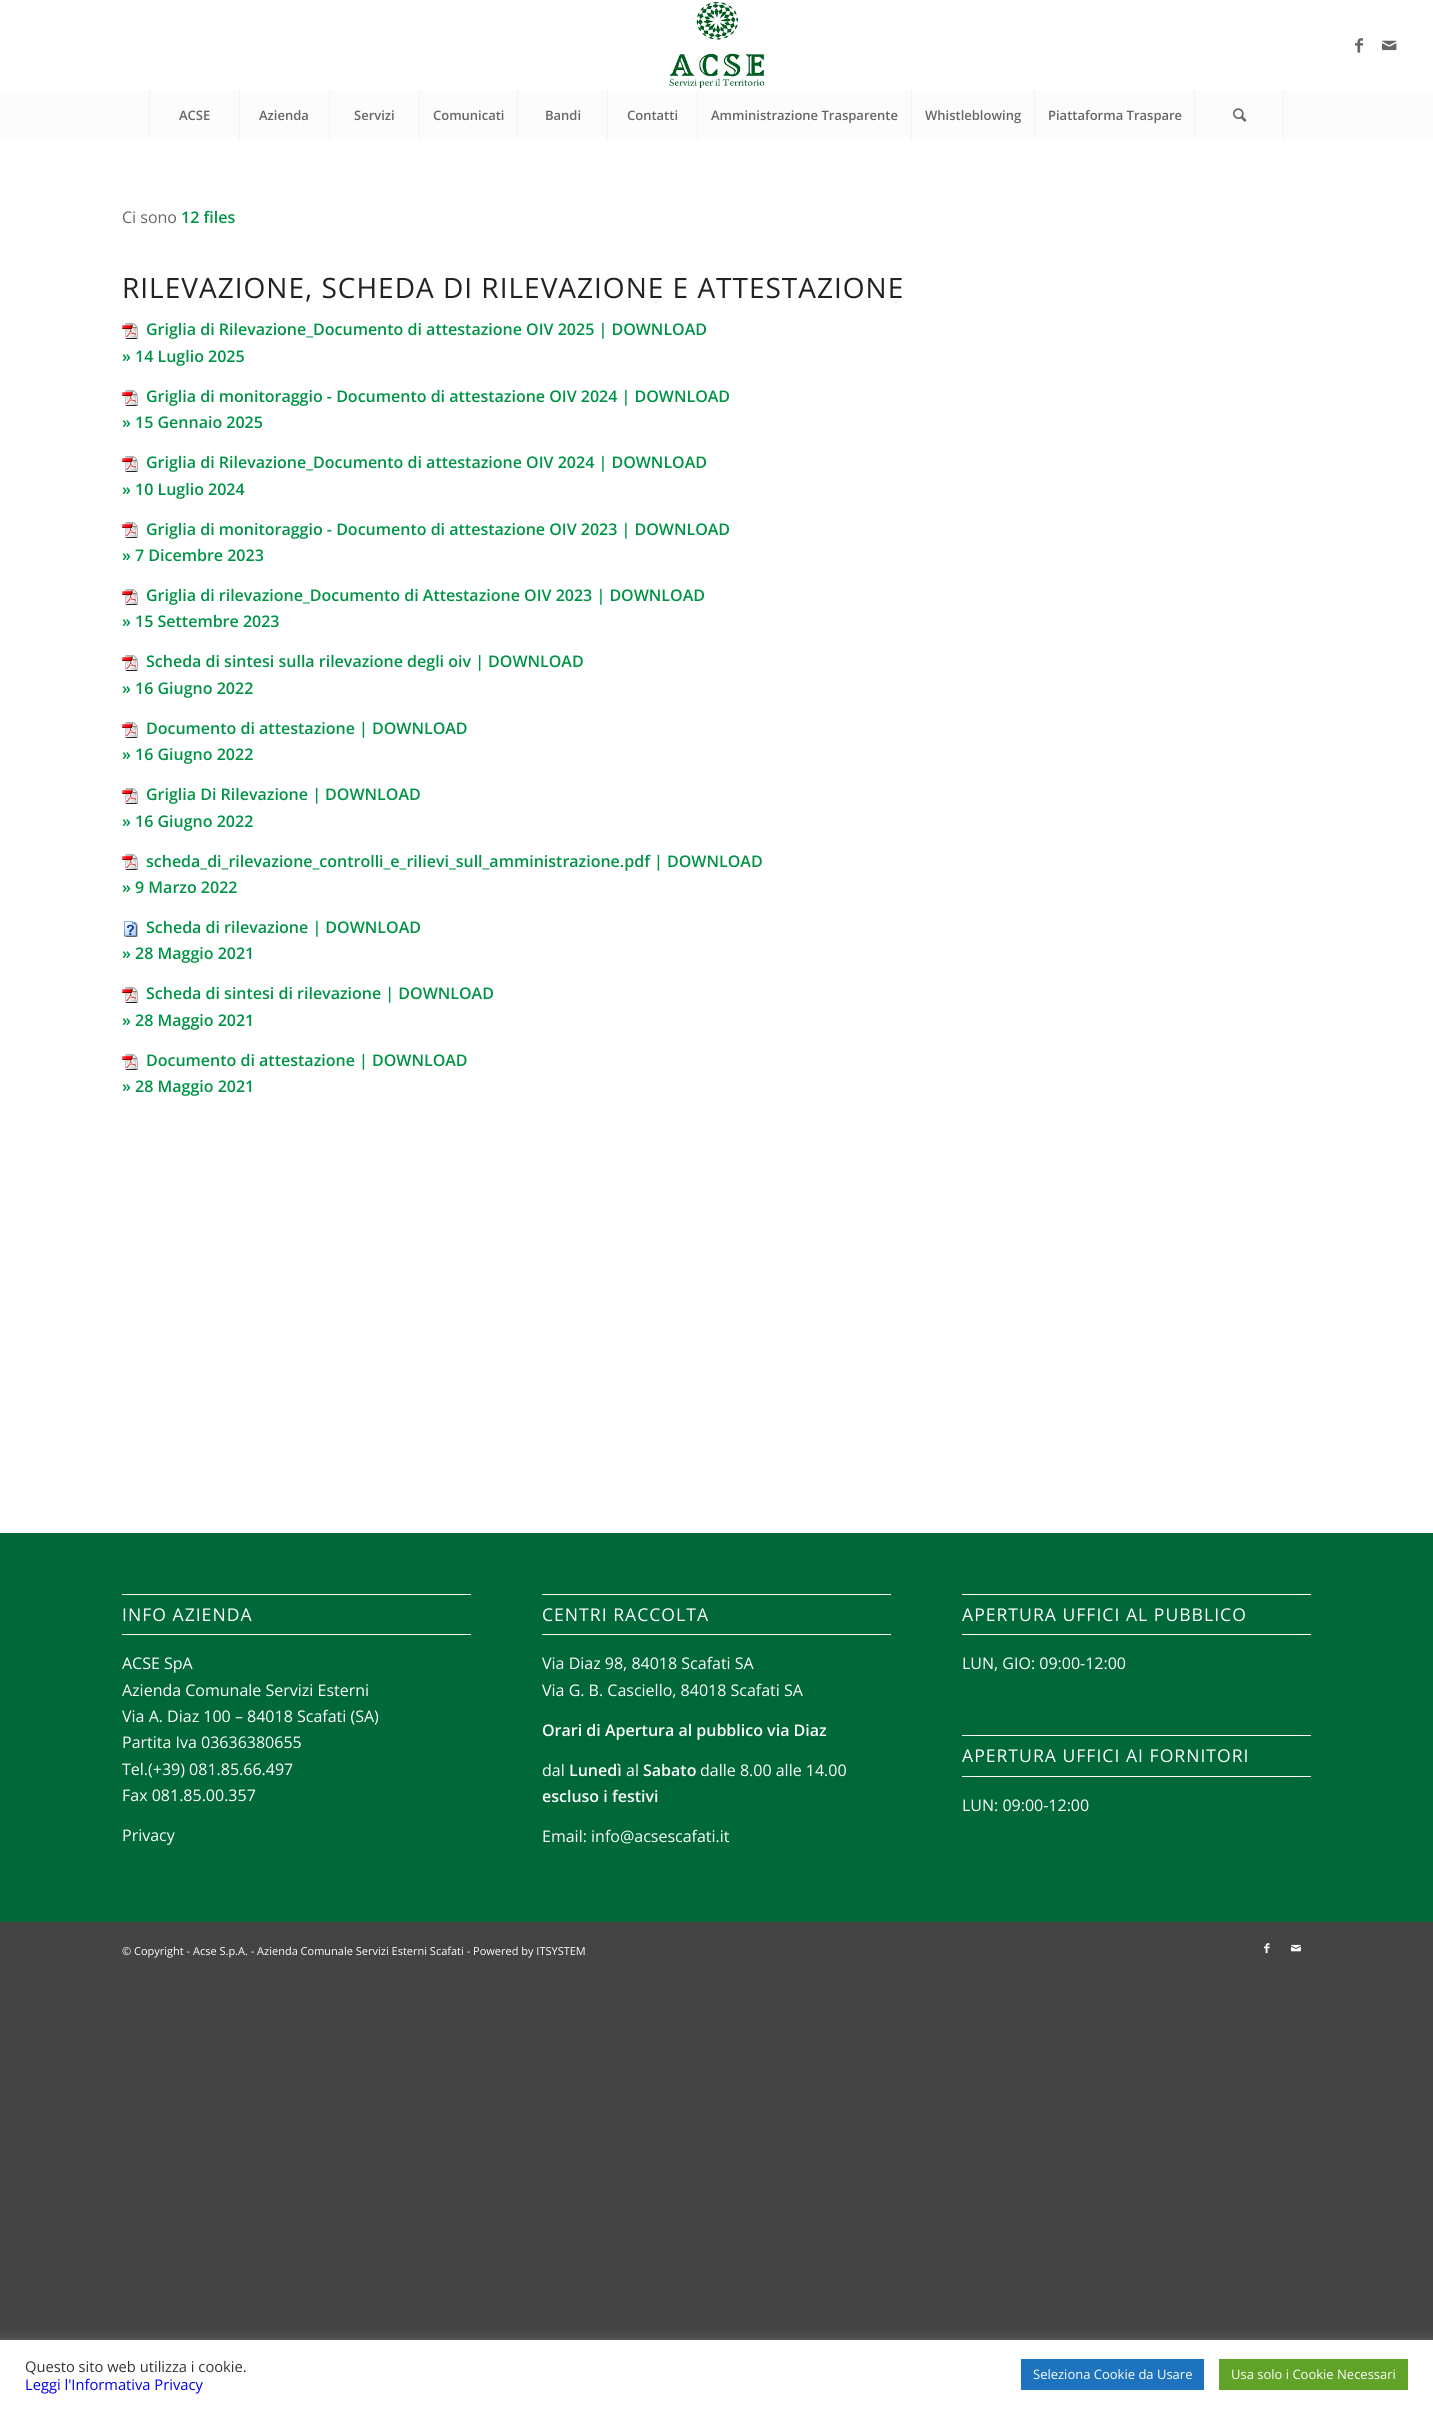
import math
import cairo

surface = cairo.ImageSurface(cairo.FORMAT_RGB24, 1433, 2409)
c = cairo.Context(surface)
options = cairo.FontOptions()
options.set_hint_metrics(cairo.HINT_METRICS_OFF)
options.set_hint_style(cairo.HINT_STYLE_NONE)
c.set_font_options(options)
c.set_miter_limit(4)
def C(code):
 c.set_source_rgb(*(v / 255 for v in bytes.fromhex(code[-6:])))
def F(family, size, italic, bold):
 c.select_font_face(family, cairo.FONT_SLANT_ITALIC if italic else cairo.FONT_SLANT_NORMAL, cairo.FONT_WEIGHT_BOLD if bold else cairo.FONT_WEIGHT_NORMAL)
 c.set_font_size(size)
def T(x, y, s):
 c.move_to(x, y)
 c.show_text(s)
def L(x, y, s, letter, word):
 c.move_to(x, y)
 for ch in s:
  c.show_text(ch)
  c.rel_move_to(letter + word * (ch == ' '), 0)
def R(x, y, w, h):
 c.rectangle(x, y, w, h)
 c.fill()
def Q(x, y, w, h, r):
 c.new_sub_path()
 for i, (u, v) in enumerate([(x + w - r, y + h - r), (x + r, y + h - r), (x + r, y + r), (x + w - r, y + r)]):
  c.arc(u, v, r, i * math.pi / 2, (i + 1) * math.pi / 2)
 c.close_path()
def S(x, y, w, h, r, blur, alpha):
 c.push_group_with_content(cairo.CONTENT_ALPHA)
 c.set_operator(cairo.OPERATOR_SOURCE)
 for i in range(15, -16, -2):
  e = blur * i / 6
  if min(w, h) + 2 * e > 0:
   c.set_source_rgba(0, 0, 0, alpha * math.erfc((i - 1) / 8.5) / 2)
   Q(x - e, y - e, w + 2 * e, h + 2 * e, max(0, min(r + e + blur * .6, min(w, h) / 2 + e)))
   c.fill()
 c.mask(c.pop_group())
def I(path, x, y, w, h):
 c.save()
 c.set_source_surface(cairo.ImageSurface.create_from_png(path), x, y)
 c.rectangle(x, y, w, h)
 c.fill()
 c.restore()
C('444444')
c.paint()
C('ffffff')
R(0,0,1433,1533)
I('1.png',669,1,96,88)
I('2.png',1355,38,8,15)
I('3.png',1382,40,15,11)
C('fcfcfc')
R(0,90,1433,50)
C('f2f2f2')
R(149,90,1,50)
F('Open Sans SemiBold',13,0,0)
C('666666')
T(179,120,'ACSE')
C('f2f2f2')
R(239,90,1,50)
C('666666')
T(259,120,'Azienda')
C('f2f2f2')
R(329,90,1,50)
C('666666')
T(354,120,'Servizi')
C('f2f2f2')
R(419,90,1,50)
C('666666')
T(433,120,'Comunicati')
C('f2f2f2')
R(517,90,1,50)
C('666666')
T(545,120,'Bandi')
C('f2f2f2')
R(607,90,1,50)
C('666666')
T(627,120,'Contatti')
C('f2f2f2')
R(697,90,1,50)
C('666666')
T(711,120,'Amministrazione Trasparente')
C('f2f2f2')
R(911,90,1,50)
C('666666')
T(925,120,'Whistleblowing')
C('f2f2f2')
R(1034,90,1,50)
C('666666')
T(1048,120,'Piattaforma Traspare')
C('f2f2f2')
R(1283,90,1,50)
R(1194,90,1,50)
I('4.png',1233,108,14,14)
F('Open Sans',16,0,0)
C('666666')
T(122,223,'Ci sono')
F('Open Sans SemiBold',16,0,0)
C('009345')
T(181,223,'12 files')
F('Open Sans',28,0,0)
C('222222')
L(122,298,'RILEVAZIONE, SCHEDA DI RILEVAZIONE E ATTESTAZIONE',1,0)
I('5.png',122,323,16,16)
F('Open Sans SemiBold',16,0,0)
C('009345')
T(146,335,'Griglia di Rilevazione_Documento di attestazione OIV 2025 | DOWNLOAD')
T(122,362,'» 14 Luglio 2025')
I('5.png',122,390,16,16)
T(146,402,'Griglia di monitoraggio - Documento di attestazione OIV 2024 | DOWNLOAD')
T(122,428,'» 15 Gennaio 2025')
I('5.png',122,456,16,16)
T(146,468,'Griglia di Rilevazione_Documento di attestazione OIV 2024 | DOWNLOAD')
T(122,495,'» 10 Luglio 2024')
I('5.png',122,522,16,16)
T(146,535,'Griglia di monitoraggio - Documento di attestazione OIV 2023 | DOWNLOAD')
T(122,561,'» 7 Dicembre 2023')
I('5.png',122,589,16,16)
T(146,601,'Griglia di rilevazione_Documento di Attestazione OIV 2023 | DOWNLOAD')
T(122,627,'» 15 Settembre 2023')
I('5.png',122,655,16,16)
T(146,667,'Scheda di sintesi sulla rilevazione degli oiv | DOWNLOAD')
T(122,694,'» 16 Giugno 2022')
I('5.png',122,722,16,16)
T(146,734,'Documento di attestazione | DOWNLOAD')
T(122,760,'» 16 Giugno 2022')
I('5.png',122,788,16,16)
T(146,800,'Griglia Di Rilevazione | DOWNLOAD')
T(122,827,'» 16 Giugno 2022')
I('5.png',122,854,16,16)
T(146,867,'scheda_di_rilevazione_controlli_e_rilievi_sull_amministrazione.pdf | DOWNLOAD')
T(122,893,'» 9 Marzo 2022')
I('6.png',124,921,14,16)
T(146,933,'Scheda di rilevazione | DOWNLOAD')
T(122,959,'» 28 Maggio 2021')
I('5.png',122,987,16,16)
T(146,999,'Scheda di sintesi di rilevazione | DOWNLOAD')
T(122,1026,'» 28 Maggio 2021')
I('5.png',122,1054,16,16)
T(146,1066,'Documento di attestazione | DOWNLOAD')
T(122,1092,'» 28 Maggio 2021')
C('01683a')
R(0,1533,1433,389)
C('ffffff')
R(122,1594,349,1)
R(122,1634,349,1)
F('Open Sans',17.6,0,0)
L(122,1621,'INFO AZIENDA',1,0)
F('Open Sans',16,0,0)
T(122,1669,'ACSE SpA')
T(122,1696,'Azienda Comunale Servizi Esterni')
T(122,1722,'Via A. Diaz 100 – 84018 Scafati (SA)')
T(122,1748,'Partita Iva 03636380655')
T(122,1775,'Tel.(+39) 081.85.66.497')
T(122,1801,'Fax 081.85.00.357')
T(122,1841,'Privacy')
R(542,1594,349,1)
R(542,1634,349,1)
F('Open Sans',17.6,0,0)
L(542,1621,'CENTRI RACCOLTA',1,0)
F('Open Sans',16,0,0)
T(542,1669,'Via Diaz 98, 84018 Scafati SA')
T(542,1696,'Via G. B. Casciello, 84018 Scafati SA')
F('Open Sans SemiBold',16,0,0)
T(542,1736,'Orari di Apertura al pubblico via Diaz')
F('Open Sans',16,0,0)
T(542,1776,'dal')
F('Open Sans SemiBold',16,0,0)
T(569,1776,'Lunedì')
F('Open Sans',16,0,0)
T(626,1776,'al')
F('Open Sans SemiBold',16,0,0)
T(643,1776,'Sabato')
F('Open Sans',16,0,0)
T(700,1776,'dalle 8.00 alle 14.00')
F('Open Sans SemiBold',16,0,0)
T(542,1802,'escluso i festivi')
F('Open Sans',16,0,0)
T(542,1842,'Email: info@acsescafati.it')
R(962,1594,349,1)
R(962,1634,349,1)
F('Open Sans',17.6,0,0)
L(962,1621,'APERTURA UFFICI AL PUBBLICO',1,0)
F('Open Sans',16,0,0)
T(962,1669,'LUN, GIO: 09:00-12:00')
R(962,1735,349,1)
R(962,1776,349,1)
F('Open Sans',17.6,0,0)
L(962,1762,'APERTURA UFFICI AI FORNITORI',1,0)
F('Open Sans',16,0,0)
T(962,1811,'LUN: 09:00-12:00')
F('Open Sans',11,0,0)
T(122,1955,'© Copyright - Acse S.p.A. - Azienda Comunale Servizi Esterni Scafati - Powered by ITSYSTEM')
I('7.png',1264,1943,6,11)
I('8.png',1291,1944,10,8)
C('acabab')
S(0,2339,1433,69,0,5,.3)
C('ffffff')
R(0,2340,1433,69)
F('Open Sans',14.7,0,0)
C('333333')
T(25,2372,'Questo sito web utilizza i cookie.')
C('0000ee')
T(25,2390,'Leggi l\'Informativa Privacy')
C('1e73be')
R(1021,2359,183,31)
F('Open Sans',13,0,0)
C('ffffff')
T(1033,2379,'Seleziona Cookie da Usare')
C('61a229')
R(1219,2359,189,31)
C('ffffff')
T(1231,2379,'Usa solo i Cookie Necessari')
surface.write_to_png('o.png')
